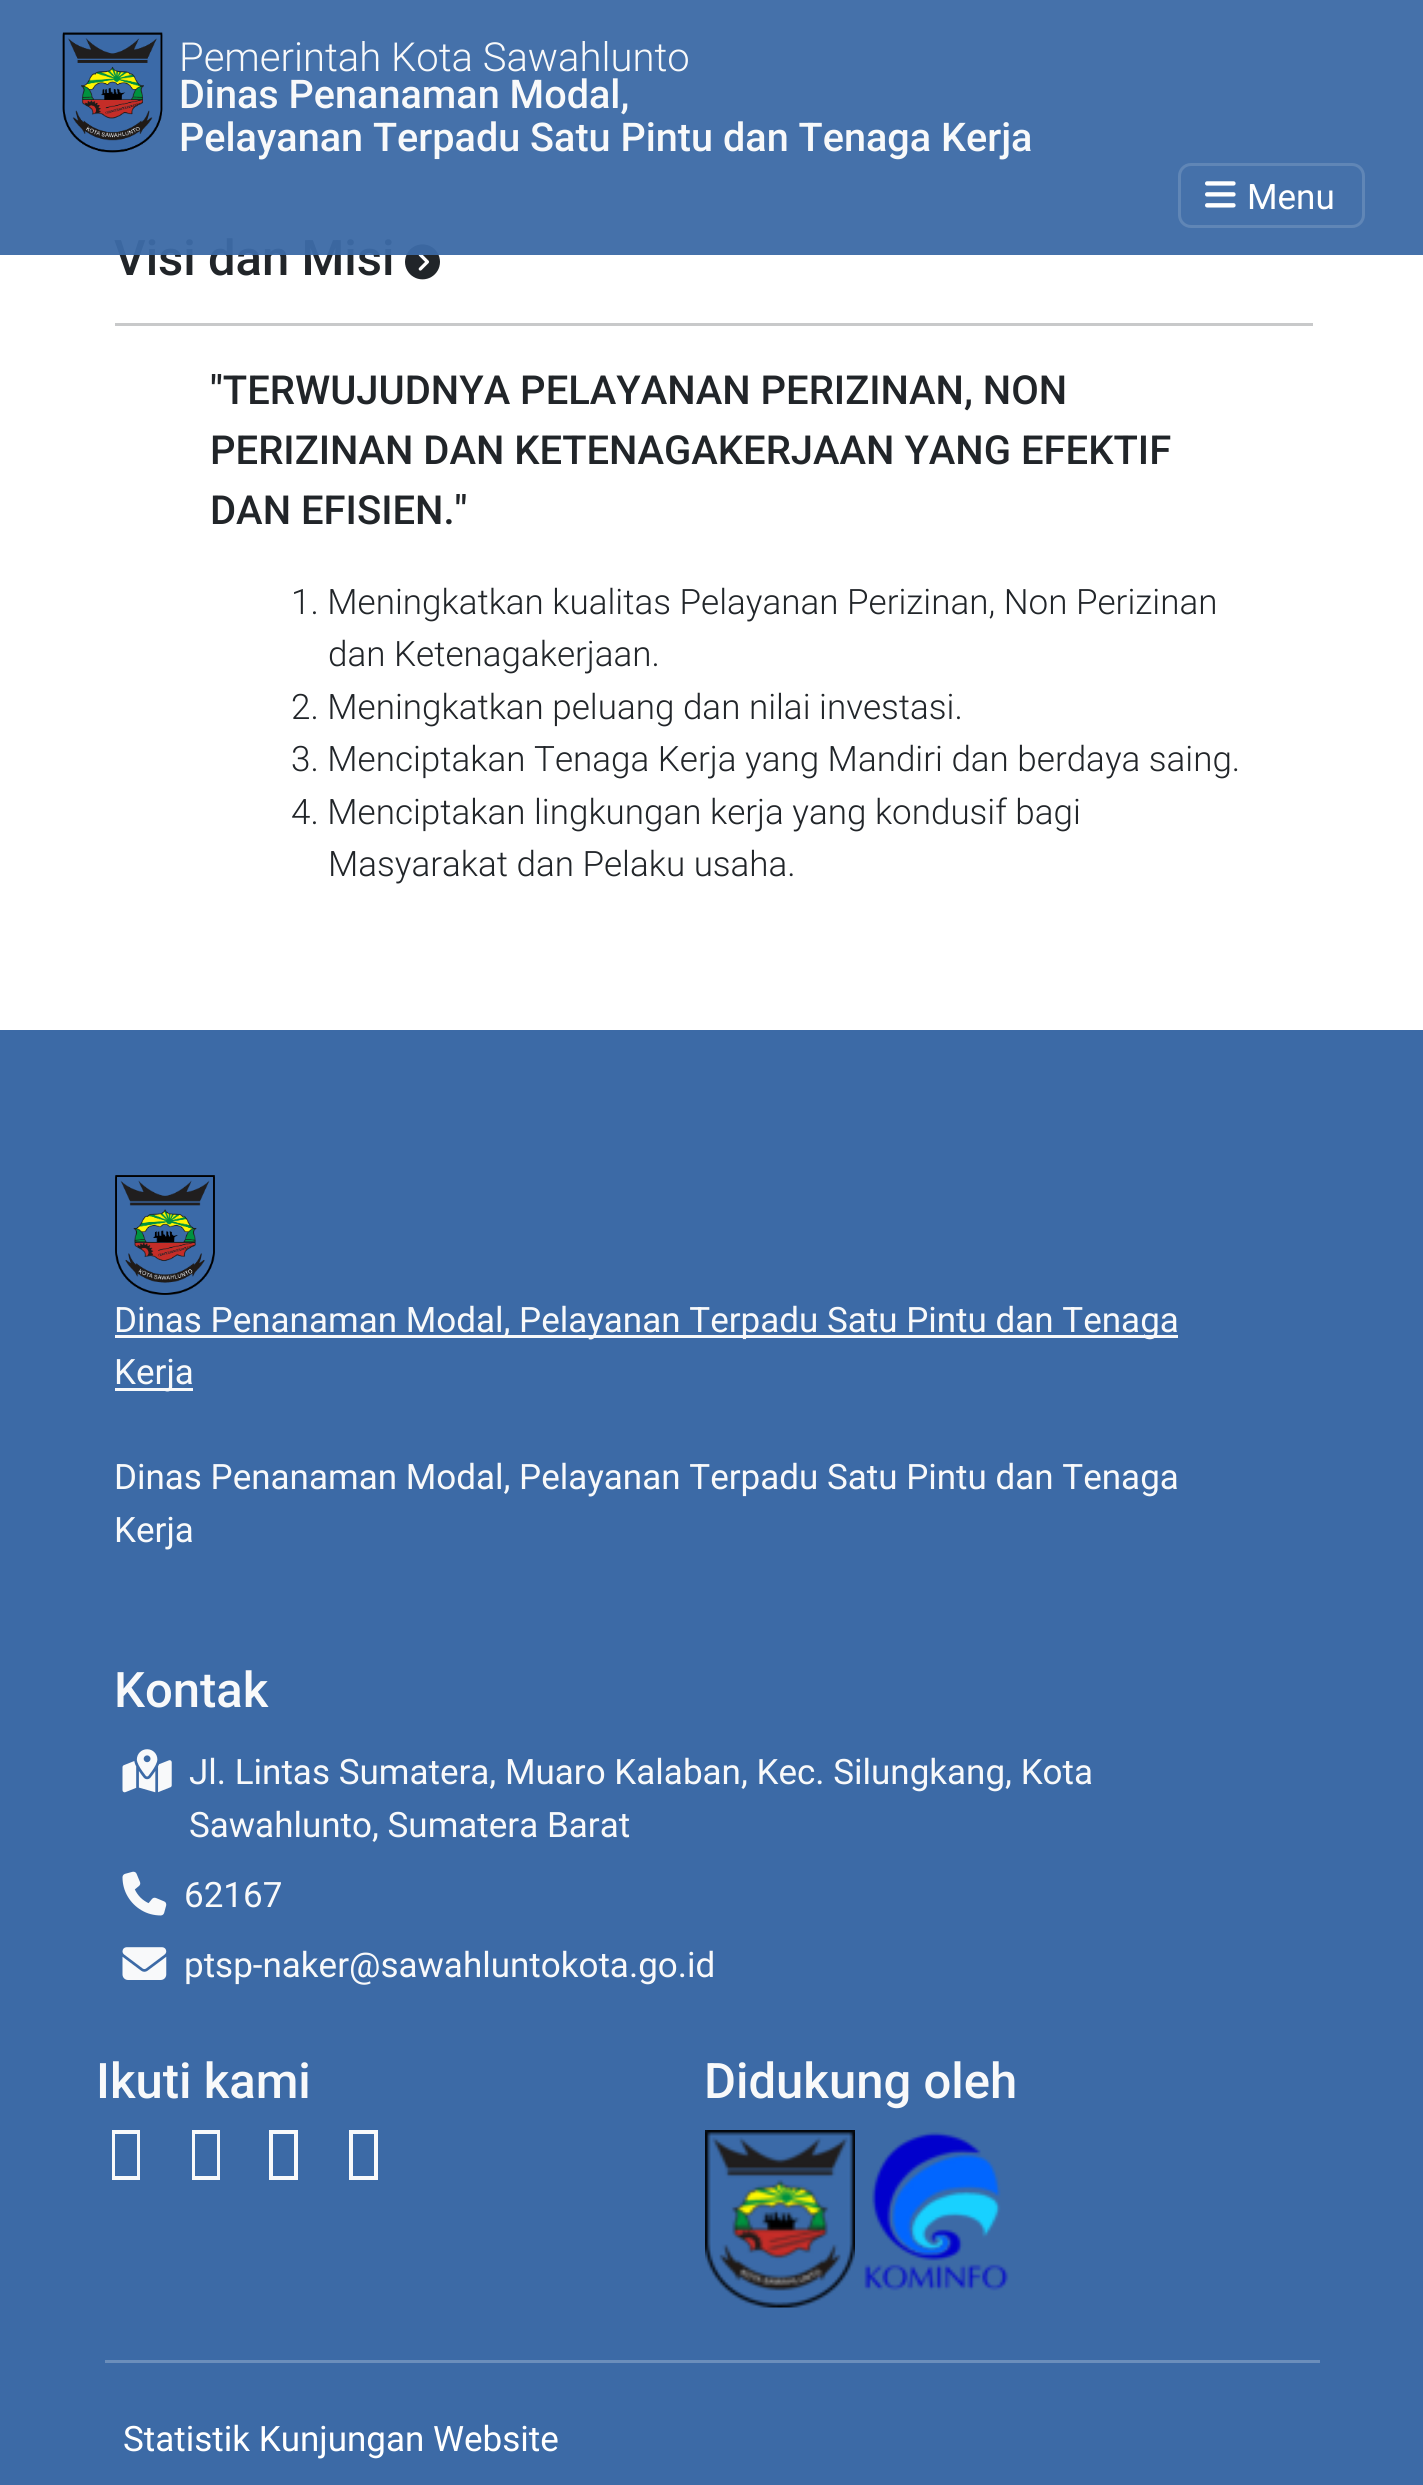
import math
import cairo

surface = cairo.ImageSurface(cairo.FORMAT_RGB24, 1423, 2485)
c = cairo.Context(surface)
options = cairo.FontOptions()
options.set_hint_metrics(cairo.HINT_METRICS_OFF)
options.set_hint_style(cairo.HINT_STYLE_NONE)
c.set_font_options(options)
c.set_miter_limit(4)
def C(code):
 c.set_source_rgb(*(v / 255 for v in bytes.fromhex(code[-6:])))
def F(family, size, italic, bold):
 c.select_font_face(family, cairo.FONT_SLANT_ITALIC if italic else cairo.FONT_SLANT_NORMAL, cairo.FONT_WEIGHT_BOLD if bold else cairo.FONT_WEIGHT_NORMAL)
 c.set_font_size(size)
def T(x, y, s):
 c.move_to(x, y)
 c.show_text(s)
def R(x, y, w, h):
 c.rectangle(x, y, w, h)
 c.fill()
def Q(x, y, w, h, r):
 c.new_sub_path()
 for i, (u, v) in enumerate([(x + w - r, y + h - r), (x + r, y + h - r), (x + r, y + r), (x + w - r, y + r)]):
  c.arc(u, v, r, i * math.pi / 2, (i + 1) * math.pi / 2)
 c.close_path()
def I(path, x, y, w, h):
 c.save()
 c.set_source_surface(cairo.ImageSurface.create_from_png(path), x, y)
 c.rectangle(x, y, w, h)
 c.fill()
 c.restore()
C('ffffff')
c.paint()
F('Roboto Medium',49,0,0)
C('212529')
T(114,275,'Visi dan Misi')
I('3.png',405,244,35,36)
c.set_source_rgba(0.235,0.416,0.651,0.95)
R(0,0,1423,255)
I('1.png',62,32,101,121)
F('Roboto Light',40,0,0)
C('f8f9fa')
T(179,71,'Pemerintah Kota Sawahlunto')
F('Roboto Medium',39.6,0,0)
T(179,108,'Dinas Penanaman Modal,')
T(179,151,'Pelayanan Terpadu Satu Pintu')
T(723,151,'dan Tenaga Kerja')
Q(1179.5,164.5,184,62,11.5)
C('6086b6')
c.set_line_width(3)
c.stroke()
I('2.png',1205,181,31,27)
F('Roboto',35,0,0)
C('ffffff')
T(1247,209,'Menu')
C('c8c9ca')
R(115,323,1198,3)
F('Roboto Medium',40,0,0)
C('212529')
T(210,404,'"TERWUJUDNYA PELAYANAN PERIZINAN, NON')
T(210,464,'PERIZINAN DAN KETENAGAKERJAAN YANG EFEKTIF')
T(210,524,'DAN EFISIEN."')
F('Roboto Light',35,0,0)
T(291,614,'1. Meningkatkan kualitas Pelayanan Perizinan, Non Perizinan')
T(328,666,'dan Ketenagakerjaan.')
T(291,719,'2. Meningkatkan peluang dan nilai investasi.')
T(291,771,'3. Menciptakan Tenaga Kerja yang Mandiri dan berdaya saing.')
T(291,824,'4. Menciptakan lingkungan kerja yang kondusif bagi')
T(328,876,'Masyarakat dan Pelaku usaha.')
C('3c6aa6')
R(0,1030,1423,1455)
I('4.png',115,1175,100,120)
C('f8f9fa')
R(115,1335,1063,3)
F('Roboto',35,0,0)
T(114,1332,'Dinas Penanaman Modal, Pelayanan Terpadu Satu Pintu dan Tenaga')
R(115,1388,78,3)
T(114,1384,'Kerja')
T(114,1489,'Dinas Penanaman Modal, Pelayanan Terpadu Satu Pintu dan Tenaga')
T(114,1542,'Kerja')
F('Roboto Medium',49,0,0)
T(114,1707,'Kontak')
I('5.png',122,1749,50,44)
F('Roboto',35,0,0)
T(189,1784,'Jl. Lintas Sumatera, Muaro Kalaban, Kec. Silungkang, Kota')
T(189,1837,'Sawahlunto, Sumatera Barat')
I('6.png',122,1871,45,45)
T(184,1907,'62167')
I('7.png',122,1947,45,33)
T(184,1977,'ptsp-naker@sawahluntokota.go.id')
F('Roboto Medium',49,0,0)
T(96,2098,'Ikuti kami')
c.new_path()
c.move_to(112,2180)
c.line_to(112,2130)
c.line_to(140,2130)
c.line_to(140,2180)
c.close_path()
c.move_to(115,2176)
c.line_to(137,2176)
c.line_to(137,2134)
c.line_to(115,2134)
c.close_path()
c.fill()
c.new_path()
c.move_to(192,2180)
c.line_to(192,2130)
c.line_to(220,2130)
c.line_to(220,2180)
c.close_path()
c.move_to(195,2176)
c.line_to(217,2176)
c.line_to(217,2134)
c.line_to(195,2134)
c.close_path()
c.fill()
c.new_path()
c.move_to(269,2180)
c.line_to(269,2130)
c.line_to(298,2130)
c.line_to(298,2180)
c.close_path()
c.move_to(273,2176)
c.line_to(294,2176)
c.line_to(294,2134)
c.line_to(273,2134)
c.close_path()
c.fill()
c.new_path()
c.move_to(349,2180)
c.line_to(349,2130)
c.line_to(378,2130)
c.line_to(378,2180)
c.close_path()
c.move_to(353,2176)
c.line_to(374,2176)
c.line_to(374,2134)
c.line_to(353,2134)
c.close_path()
c.fill()
T(704,2098,'Didukung oleh')
I('8.png',705,2130,150,178)
I('9.png',864,2132,145,159)
C('6b8ebb')
R(105,2360,1215,3)
F('Roboto',35,0,0)
C('ffffff')
T(123,2451,'Statistik Kunjungan Website')
surface.write_to_png('o.png')
